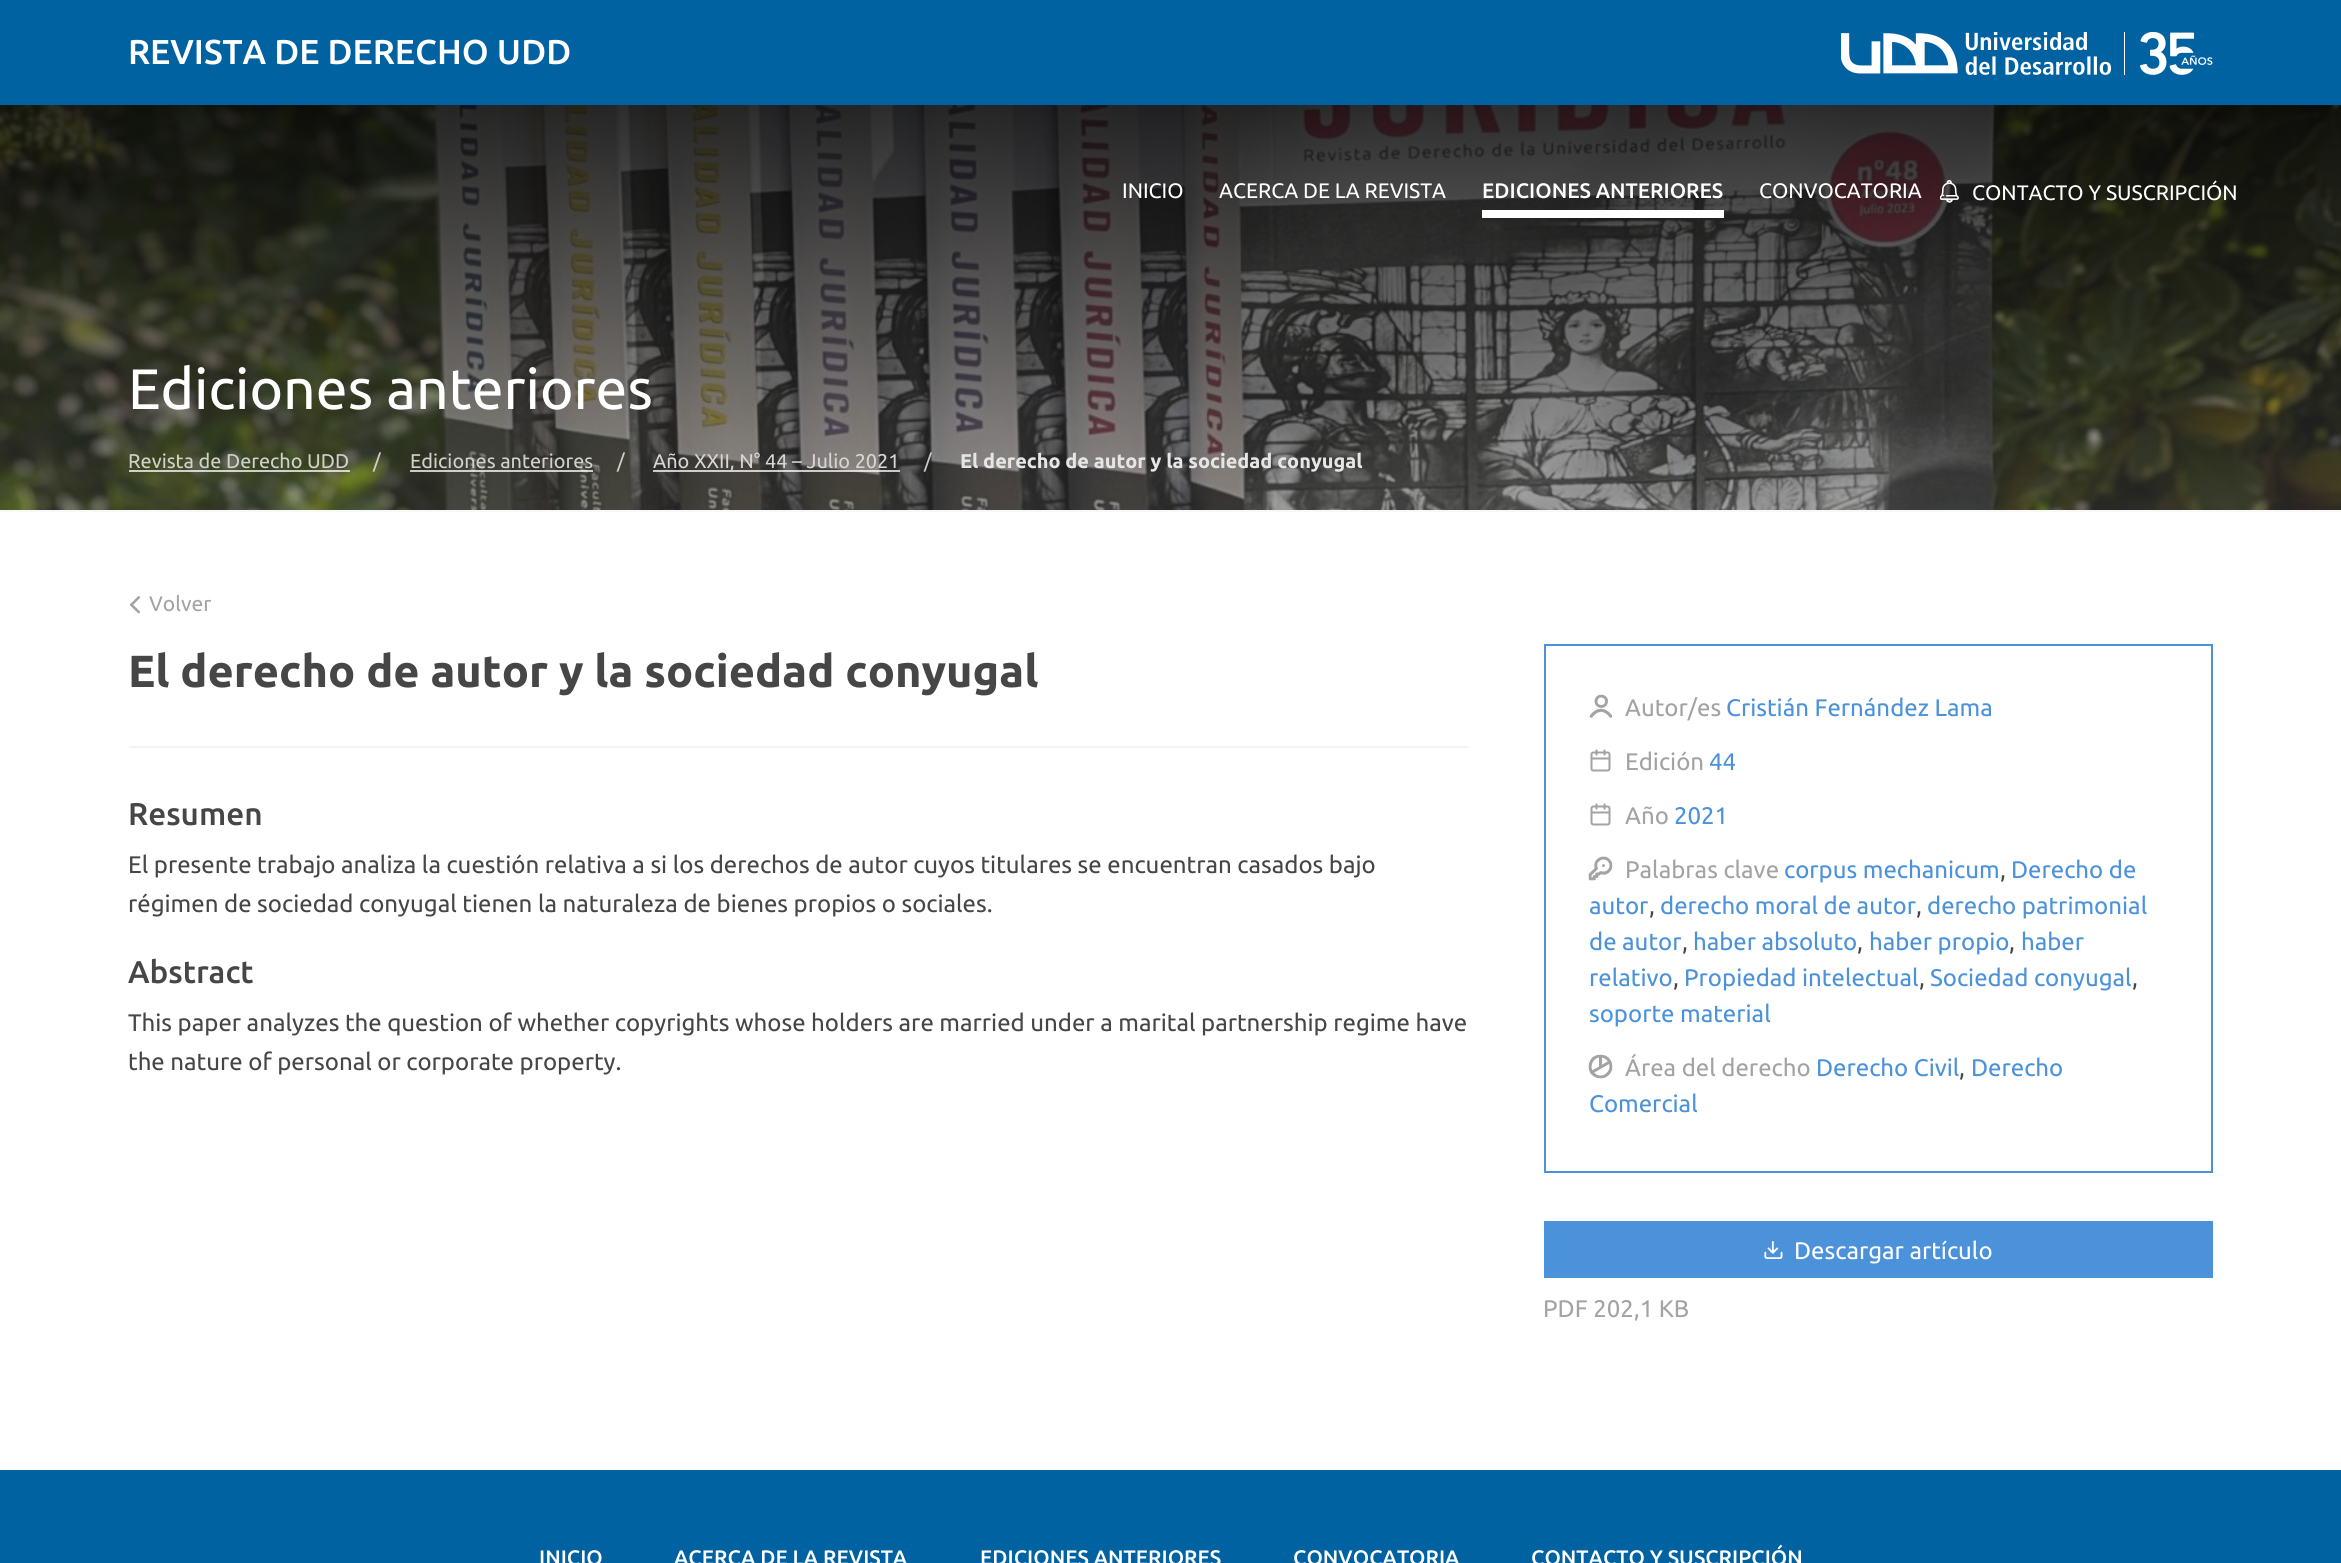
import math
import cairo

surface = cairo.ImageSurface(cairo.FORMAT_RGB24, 2341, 1563)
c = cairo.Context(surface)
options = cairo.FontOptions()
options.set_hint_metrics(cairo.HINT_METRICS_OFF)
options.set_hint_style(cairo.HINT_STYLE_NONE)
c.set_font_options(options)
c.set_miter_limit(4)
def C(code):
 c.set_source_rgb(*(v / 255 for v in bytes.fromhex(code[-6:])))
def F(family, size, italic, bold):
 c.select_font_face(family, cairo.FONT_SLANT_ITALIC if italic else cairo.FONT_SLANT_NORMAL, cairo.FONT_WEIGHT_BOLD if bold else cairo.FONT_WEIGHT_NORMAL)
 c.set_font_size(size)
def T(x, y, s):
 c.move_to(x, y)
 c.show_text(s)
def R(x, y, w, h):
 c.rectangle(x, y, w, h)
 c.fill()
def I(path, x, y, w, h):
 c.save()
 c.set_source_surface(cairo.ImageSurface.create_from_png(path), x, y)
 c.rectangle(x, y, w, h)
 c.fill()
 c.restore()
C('ffffff')
c.paint()
C('0062a1')
R(0,0,2341,105)
F('Ubuntu Medium',34.5,0,0)
C('ffffff')
T(128,64,'REVISTA DE DERECHO UDD')
I('1.png',1841,32,372,43)
I('3.png',0,105,2341,405)
F('Ubuntu',21,0,0)
T(1122,198,'INICIO')
T(1219,198,'ACERCA DE LA REVISTA')
F('Ubuntu Medium',21,0,0)
T(1482,198,'EDICIONES ANTERIORES')
R(1482,210,242,8)
F('Ubuntu',21,0,0)
T(1759,198,'CONVOCATORIA')
I('2.png',1940,180,19,23)
T(1972,200,'CONTACTO Y SUSCRIPCIÓN')
F('Ubuntu',57,0,0)
T(128,409,'Ediciones anteriores')
C('f8f8f8')
R(0,510,2341,2)
F('Ubuntu',19.9,0,0)
C('d0d2ca')
T(128,468,'Revista de Derecho UDD')
c.set_source_rgba(1,1,1,0.75)
R(129,470,221,2)
C('d0d2ca')
T(373,468,'/')
T(410,468,'Ediciones anteriores')
c.set_source_rgba(1,1,1,0.75)
R(410,470,183,2)
C('d0d2ca')
T(617,468,'/')
c.set_source_rgba(1,1,1,0.75)
R(653,470,247,2)
C('d6d5d4')
T(653,468,'Año XXII, N° 44 – Julio 2021')
C('c9c9c9')
T(924,468,'/')
F('Ubuntu',19.9,0,1)
C('e7e6e6')
T(960,468,'El derecho de autor y la sociedad conyugal')
I('4.png',129,596,12,18)
F('Ubuntu',21,0,0)
C('a3a3a3')
T(149,611,'Volver')
C('f4f3f3')
R(129,746,1340,2)
F('Ubuntu',45,0,1)
C('464646')
T(128,687,'El derecho de autor y la sociedad conyugal')
F('Ubuntu Medium',31.5,0,0)
T(128,825,'Resumen')
F('Ubuntu',24,0,0)
T(128,873,'El presente trabajo analiza la cuestión relativa a si los derechos de autor cuyos titulares se encuentran casados bajo')
T(128,912,'régimen de sociedad conyugal tienen la naturaleza de bienes propios o sociales.')
F('Ubuntu Medium',31.5,0,0)
T(128,983,'Abstract')
F('Ubuntu',24,0,0)
T(128,1031,'This paper analyzes the question of whether copyrights whose holders are married under a marital partnership regime have')
T(128,1070,'the nature of personal or corporate property.')
c.rectangle(1545,645,667,527)
C('4b92db')
c.stroke()
I('5.png',1589,694,24,24)
C('a3a3a3')
T(1625,716,'Autor/es')
C('4b92db')
T(1726,716,'Cristián Fernández Lama')
I('6.png',1590,749,21,23)
C('a3a3a3')
T(1625,770,'Edición')
C('4b92db')
T(1709,770,'44')
I('6.png',1590,803,21,23)
C('a3a3a3')
T(1625,824,'Año')
C('4b92db')
T(1674,824,'2021')
I('7.png',1588,856,25,25)
C('a3a3a3')
T(1625,878,'Palabras clave')
C('4b92db')
T(1784,878,'corpus mechanicum')
C('464646')
T(2000,878,',')
C('4b92db')
T(2011,878,'Derecho de')
T(1589,914,'autor')
C('464646')
T(1649,914,',')
C('4b92db')
T(1660,914,'derecho moral de autor')
C('464646')
T(1916,914,',')
C('4b92db')
T(1927,914,'derecho patrimonial')
T(1589,950,'de autor')
C('464646')
T(1682,950,',')
C('4b92db')
T(1693,950,'haber absoluto')
C('464646')
T(1857,950,',')
C('4b92db')
T(1869,950,'haber propio')
C('464646')
T(2009,950,',')
C('4b92db')
T(2021,950,'haber')
T(1589,986,'relativo')
C('464646')
T(1673,986,',')
C('4b92db')
T(1684,986,'Propiedad intelectual')
C('464646')
T(1919,986,',')
C('4b92db')
T(1930,986,'Sociedad conyugal')
C('464646')
T(2132,986,',')
C('4b92db')
T(1589,1022,'soporte material')
I('8.png',1588,1054,25,25)
C('a3a3a3')
T(1625,1076,'Área del derecho')
C('4b92db')
T(1816,1076,'Derecho Civil')
C('464646')
T(1959,1076,',')
C('4b92db')
T(1971,1076,'Derecho')
T(1589,1112,'Comercial')
R(1544,1221,669,57)
I('9.png',1764,1241,19,18)
C('ffffff')
T(1794,1259,'Descargar artículo')
C('a3a3a3')
T(1543,1317,'PDF 202,1 KB')
C('0062a1')
R(0,1470,2341,93)
F('Ubuntu Medium',21,0,0)
C('ffffff')
T(539,1565,'INICIO')
T(674,1565,'ACERCA DE LA REVISTA')
T(980,1565,'EDICIONES ANTERIORES')
T(1293,1565,'CONVOCATORIA')
T(1531,1565,'CONTACTO Y SUSCRIPCIÓN')
surface.write_to_png('o.png')
